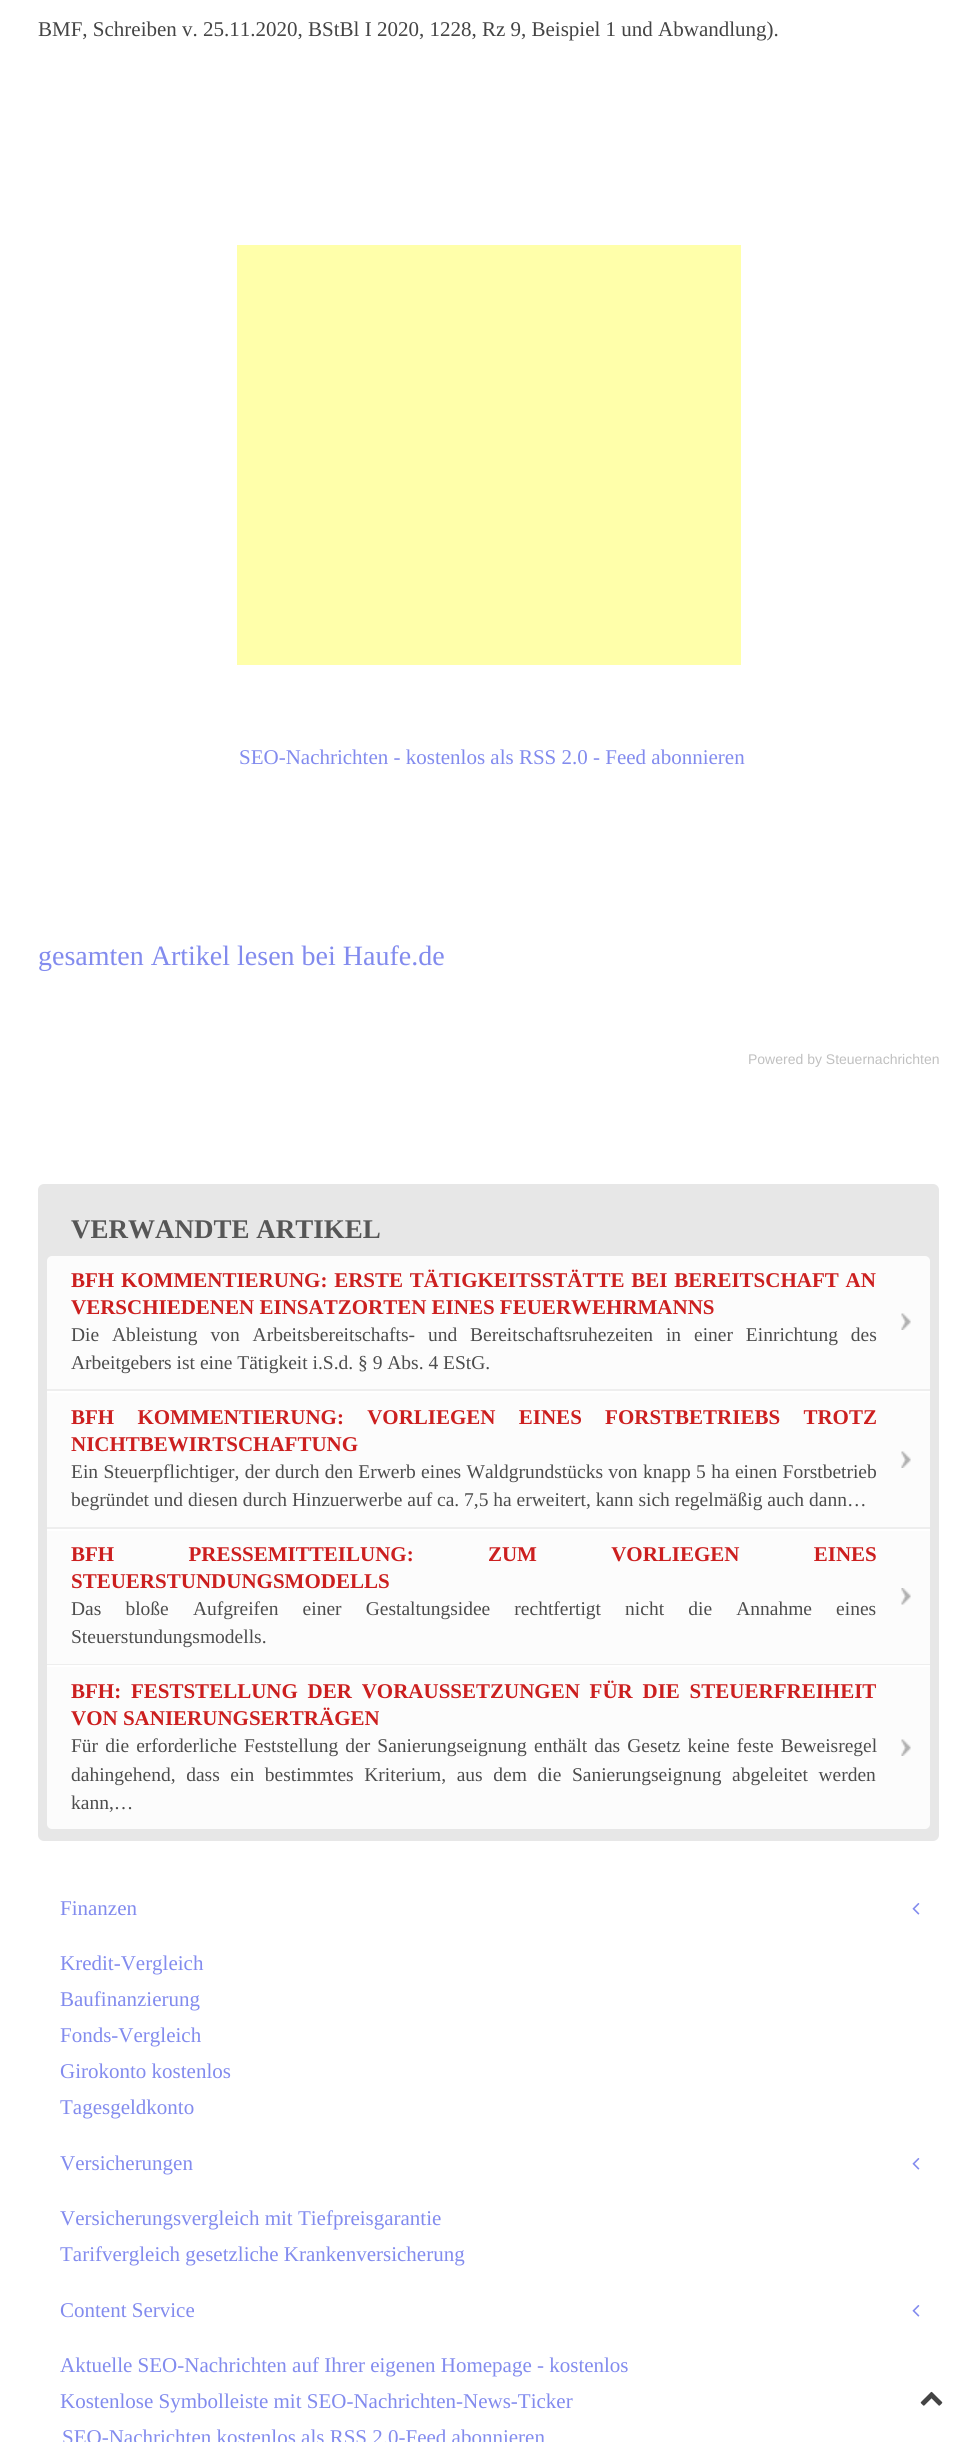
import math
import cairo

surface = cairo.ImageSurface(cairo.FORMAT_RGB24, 976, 2442)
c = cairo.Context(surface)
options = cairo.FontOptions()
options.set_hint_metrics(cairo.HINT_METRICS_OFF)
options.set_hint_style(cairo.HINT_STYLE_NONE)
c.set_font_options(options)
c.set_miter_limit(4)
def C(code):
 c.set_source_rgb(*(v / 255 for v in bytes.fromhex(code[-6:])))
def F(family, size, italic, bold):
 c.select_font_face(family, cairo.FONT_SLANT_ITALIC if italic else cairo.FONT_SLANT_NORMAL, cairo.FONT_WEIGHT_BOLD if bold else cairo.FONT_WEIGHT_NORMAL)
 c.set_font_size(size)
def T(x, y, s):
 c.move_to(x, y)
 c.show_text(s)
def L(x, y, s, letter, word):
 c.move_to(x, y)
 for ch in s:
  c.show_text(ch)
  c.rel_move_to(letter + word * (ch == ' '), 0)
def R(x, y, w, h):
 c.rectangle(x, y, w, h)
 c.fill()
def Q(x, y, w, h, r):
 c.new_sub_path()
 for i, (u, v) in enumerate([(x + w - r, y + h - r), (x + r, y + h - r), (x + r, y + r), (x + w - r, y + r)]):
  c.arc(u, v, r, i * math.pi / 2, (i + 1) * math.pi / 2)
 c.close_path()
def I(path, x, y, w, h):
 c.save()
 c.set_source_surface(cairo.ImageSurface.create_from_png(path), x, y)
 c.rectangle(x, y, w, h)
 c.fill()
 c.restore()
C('ffffff')
c.paint()
F('Liberation Serif',21,0,0)
C('444444')
T(38,36,'BMF, Schreiben v. 25.11.2020, BStBl I 2020, 1228, Rz 9, Beispiel 1 und Abwandlung).')
C('ffffaa')
R(237,245,504,420)
C('828bee')
T(239,764,'SEO-Nachrichten - kostenlos als RSS 2.0 - Feed abonnieren')
F('Liberation Serif',28,0,0)
T(38,965,'gesamten Artikel lesen bei Haufe.de')
F('Liberation Sans',14,0,0)
C('c0c0c0')
T(748,1064,'Powered by Steuernachrichten')
C('e7e7e7')
Q(38,1184,901,657,6)
c.fill()
F('Liberation Serif',27,0,1)
C('565656')
T(71,1238,'VERWANDTE ARTIKEL')
C('fcfcfc')
Q(47,1256,883,573,5)
c.fill()
C('eeeeee')
R(47,1389,883,2)
F('Liberation Serif',21,0,1)
C('cc1f1f')
L(71,1287,'BFH KOMMENTIERUNG: ERSTE TÄTIGKEITSSTÄTTE BEI BEREITSCHAFT AN',0,1.5)
T(71,1314,'VERSCHIEDENEN EINSATZORTEN EINES FEUERWEHRMANNS')
F('Liberation Serif',19.5,0,0)
C('4d4d4d')
L(71,1341,'Die Ableistung von Arbeitsbereitschafts- und Bereitschaftsruhezeiten in einer Einrichtung des',0,8)
T(71,1369,'Arbeitgebers ist eine Tätigkeit i.S.d. § 9 Abs. 4 EStG.')
I('1.png',901,1313,10,17)
C('ffffff')
R(47,1391,883,2)
C('eeeeee')
R(47,1527,883,2)
F('Liberation Serif',21,0,1)
C('cc1f1f')
L(71,1424,'BFH KOMMENTIERUNG: VORLIEGEN EINES FORSTBETRIEBS TROTZ',0,18)
T(71,1451,'NICHTBEWIRTSCHAFTUNG')
F('Liberation Serif',19.5,0,0)
C('4d4d4d')
L(71,1478,'Ein Steuerpflichtiger, der durch den Erwerb eines Waldgrundstücks von knapp 5 ha einen Forstbetrieb',0,.5)
T(71,1506,'begründet und diesen durch Hinzuerwerbe auf ca. 7,5 ha erweitert, kann sich regelmäßig auch dann…')
I('1.png',901,1451,10,17)
C('ffffff')
R(47,1529,883,2)
C('eeeeee')
R(47,1664,883,1)
F('Liberation Serif',21,0,1)
C('cc1f1f')
L(71,1561,'BFH PRESSEMITTEILUNG: ZUM VORLIEGEN EINES',0,69)
T(71,1588,'STEUERSTUNDUNGSMODELLS')
F('Liberation Serif',19.5,0,0)
C('4d4d4d')
L(71,1615,'Das bloße Aufgreifen einer Gestaltungsidee rechtfertigt nicht die Annahme eines',0,19.25)
T(71,1643,'Steuerstundungsmodells.')
I('2.png',901,1588,10,17)
C('ffffff')
R(47,1665,883,2)
F('Liberation Serif',21,0,1)
C('cc1f1f')
L(71,1698,'BFH: FESTSTELLUNG DER VORAUSSETZUNGEN FÜR DIE STEUERFREIHEIT',0,4.5)
T(71,1725,'VON SANIERUNGSERTRÄGEN')
F('Liberation Serif',19.5,0,0)
C('4d4d4d')
L(71,1752,'Für die erforderliche Feststellung der Sanierungseignung enthält das Gesetz keine feste Beweisregel',0,2.25)
L(71,1781,'dahingehend, dass ein bestimmtes Kriterium, aus dem die Sanierungseignung abgeleitet werden',0,5.75)
T(71,1809,'kann,…')
I('1.png',901,1739,10,17)
F('Liberation Serif',21,0,0)
C('828bee')
T(60,1915,'Finanzen')
I('3.png',912,1903,8,12)
T(60,1970,'Kredit-Vergleich')
T(60,2006,'Baufinanzierung')
T(60,2042,'Fonds-Vergleich')
T(60,2078,'Girokonto kostenlos')
T(60,2114,'Tagesgeldkonto')
T(60,2170,'Versicherungen')
I('3.png',912,2158,8,12)
T(60,2225,'Versicherungsvergleich mit Tiefpreisgarantie')
T(60,2261,'Tarifvergleich gesetzliche Krankenversicherung')
T(60,2317,'Content Service')
I('3.png',912,2305,8,12)
T(60,2372,'Aktuelle SEO-Nachrichten auf Ihrer eigenen Homepage - kostenlos')
T(60,2408,'Kostenlose Symbolleiste mit SEO-Nachrichten-News-Ticker')
T(62,2444,'SEO-Nachrichten kostenlos als RSS 2.0-Feed abonnieren')
I('4.png',920,2391,23,15)
surface.write_to_png('o.png')
